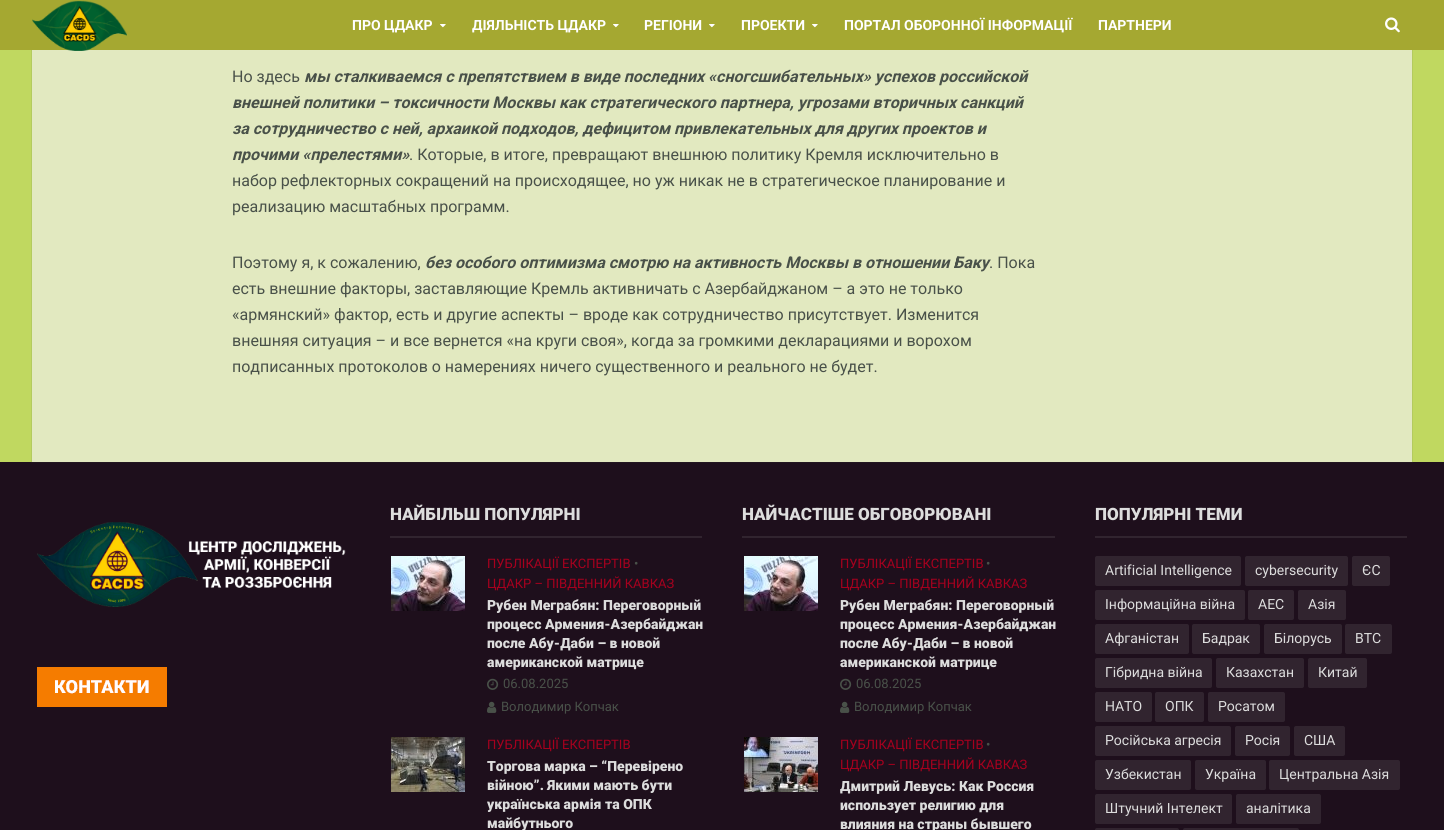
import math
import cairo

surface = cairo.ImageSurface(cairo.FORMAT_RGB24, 1444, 830)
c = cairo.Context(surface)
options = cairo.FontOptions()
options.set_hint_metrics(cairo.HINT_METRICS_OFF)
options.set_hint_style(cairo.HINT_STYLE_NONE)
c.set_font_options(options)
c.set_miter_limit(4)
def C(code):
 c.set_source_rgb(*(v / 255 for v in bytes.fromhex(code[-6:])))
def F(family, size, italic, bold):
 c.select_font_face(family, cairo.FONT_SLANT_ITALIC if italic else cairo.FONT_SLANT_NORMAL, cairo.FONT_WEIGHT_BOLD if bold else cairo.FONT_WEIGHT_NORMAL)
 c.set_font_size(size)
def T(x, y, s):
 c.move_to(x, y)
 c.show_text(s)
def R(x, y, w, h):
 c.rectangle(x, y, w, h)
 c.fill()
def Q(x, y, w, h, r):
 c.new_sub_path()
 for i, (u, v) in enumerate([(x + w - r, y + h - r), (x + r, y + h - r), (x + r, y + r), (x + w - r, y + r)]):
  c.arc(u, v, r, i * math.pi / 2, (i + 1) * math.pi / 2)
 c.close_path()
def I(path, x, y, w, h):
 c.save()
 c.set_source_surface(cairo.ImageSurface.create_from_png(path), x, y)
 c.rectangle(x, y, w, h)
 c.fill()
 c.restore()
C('c0d860')
c.paint()
C('1e0f1c')
R(0,462,1444,368)
c.rectangle(31.5,-.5,1381,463)
c.set_source_rgba(0.286,0.318,0.286,0.1)
c.set_line_width(1)
c.stroke()
C('a5a831')
R(0,0,1444,50)
C('e2e9c0')
R(32,50,1380,412)
I('1.png',32,0,95,51)
F('Roboto',14,0,1)
C('ffffff')
T(352,30,'ПРО ЦДАКР')
I('2.png',440,24,6,4)
T(472,30,'ДІЯЛЬНІСТЬ ЦДАКР')
I('2.png',613,24,6,4)
T(644,30,'РЕГІОНИ')
I('2.png',709,24,6,4)
T(741,30,'ПРОЕКТИ')
I('2.png',812,24,6,4)
T(844,30,'ПОРТАЛ ОБОРОННОЇ ІНФОРМАЦІЇ')
T(1098,30,'ПАРТНЕРИ')
I('3.png',1385,17,15,16)
F('Roboto',16,0,0)
C('495149')
T(232,82,'Но здесь')
F('Roboto',16,1,1)
T(304,82,'мы сталкиваемся с препятствием в виде последних «сногсшибательных» успехов российской')
T(232,108,'внешней политики – токсичности Москвы как стратегического партнера, угрозами вторичных санкций')
T(232,134,'за сотрудничество с ней, архаикой подходов, дефицитом привлекательных для других проектов и')
T(232,160,'прочими «прелестями»')
F('Roboto',16,0,0)
T(409,160,'. Которые, в итоге, превращают внешнюю политику Кремля исключительно в')
T(232,186,'набор рефлекторных сокращений на происходящее, но уж никак не в стратегическое планирование и')
T(232,212,'реализацию масштабных программ.')
T(232,268,'Поэтому я, к сожалению,')
F('Roboto',16,1,1)
T(425,268,'без особого оптимизма смотрю на активность Москвы в отношении Баку')
F('Roboto',16,0,0)
T(989,268,'. Пока')
T(232,294,'есть внешние факторы, заставляющие Кремль активничать с Азербайджаном – а это не только')
T(232,320,'«армянский» фактор, есть и другие аспекты – вроде как сотрудничество присутствует. Изменится')
T(232,346,'внешняя ситуация – и все вернется «на круги своя», когда за громкими декларациями и ворохом')
T(232,372,'подписанных протоколов о намерениях ничего существенного и реального не будет.')
I('4.png',37,522,309,85)
I('5.png',37,667,130,40)
F('Roboto Black',17,0,0)
C('dddddd')
T(390,520,'НАЙБІЛЬШ ПОПУЛЯРНІ')
C('31242f')
R(390,536,312,2)
I('6.png',391,556,74,55)
F('Roboto',13,0,0)
C('a7001e')
T(487,568,'ПУБЛІКАЦІЇ ЕКСПЕРТІВ')
C('495149')
T(634,568,'•')
C('a7001e')
T(487,588,'ЦДАКР – ПІВДЕННИЙ КАВКАЗ')
F('Roboto Black',14,0,0)
C('dddddd')
T(487,610,'Рубен Меграбян: Переговорный')
T(487,629,'процесс Армения-Азербайджан')
T(487,648,'после Абу-Даби – в новой')
T(487,667,'американской матрице')
I('7.png',487,678,12,12)
F('Roboto',13,0,0)
C('495149')
T(503,688,'06.08.2025')
I('8.png',487,701,10,12)
T(501,711,'Володимир Копчак')
I('9.png',391,737,74,55)
C('a7001e')
T(487,749,'ПУБЛІКАЦІЇ ЕКСПЕРТІВ')
F('Roboto Black',14,0,0)
C('dddddd')
T(487,771,'Торгова марка – “Перевірено')
T(487,790,'війною”. Якими мають бути')
T(487,809,'українська армія та ОПК')
T(487,828,'майбутнього')
F('Roboto Black',17,0,0)
T(742,520,'НАЙЧАСТІШЕ ОБГОВОРЮВАНІ')
C('31242f')
R(742,536,313,2)
I('6.png',744,556,74,55)
F('Roboto',13,0,0)
C('a7001e')
T(840,568,'ПУБЛІКАЦІЇ ЕКСПЕРТІВ')
C('495149')
T(986,568,'•')
C('a7001e')
T(840,588,'ЦДАКР – ПІВДЕННИЙ КАВКАЗ')
F('Roboto Black',14,0,0)
C('dddddd')
T(840,610,'Рубен Меграбян: Переговорный')
T(840,629,'процесс Армения-Азербайджан')
T(840,648,'после Абу-Даби – в новой')
T(840,667,'американской матрице')
I('7.png',840,678,12,12)
F('Roboto',13,0,0)
C('495149')
T(856,688,'06.08.2025')
I('8.png',840,701,10,12)
T(854,711,'Володимир Копчак')
I('10.png',744,737,74,55)
C('a7001e')
T(840,749,'ПУБЛІКАЦІЇ ЕКСПЕРТІВ')
C('495149')
T(986,749,'•')
C('a7001e')
T(840,769,'ЦДАКР – ПІВДЕННИЙ КАВКАЗ')
F('Roboto Black',14,0,0)
C('dddddd')
T(840,791,'Дмитрий Левусь: Как Россия')
T(840,810,'использует религию для')
T(840,829,'влияния на страны бывшего')
F('Roboto Black',17,0,0)
T(1095,520,'ПОПУЛЯРНІ ТЕМИ')
C('31242f')
R(1095,536,312,2)
Q(1095,556,146,30,2)
c.fill()
F('Roboto',14,0,0)
C('dddddd')
T(1105,575,'Artificial Intelligence')
C('31242f')
Q(1245,556,103,30,2)
c.fill()
C('dddddd')
T(1255,575,'cybersecurity')
C('31242f')
Q(1352,556,38,30,2)
c.fill()
C('dddddd')
T(1362,575,'ЄС')
C('31242f')
Q(1095,590,150,30,2)
c.fill()
C('dddddd')
T(1105,609,'Інформаційна війна')
C('31242f')
Q(1248,590,46,30,2)
c.fill()
C('dddddd')
T(1258,609,'АЕС')
C('31242f')
Q(1298,590,48,30,2)
c.fill()
C('dddddd')
T(1308,609,'Азія')
C('31242f')
Q(1095,624,94,30,2)
c.fill()
C('dddddd')
T(1105,643,'Афганістан')
C('31242f')
Q(1192,624,68,30,2)
c.fill()
C('dddddd')
T(1202,643,'Бадрак')
C('31242f')
Q(1264,624,78,30,2)
c.fill()
C('dddddd')
T(1274,643,'Білорусь')
C('31242f')
Q(1345,624,47,30,2)
c.fill()
C('dddddd')
T(1355,643,'ВТС')
C('31242f')
Q(1095,658,117,30,2)
c.fill()
C('dddddd')
T(1105,677,'Гібридна війна')
C('31242f')
Q(1216,658,88,30,2)
c.fill()
C('dddddd')
T(1226,677,'Казахстан')
C('31242f')
Q(1308,658,59,30,2)
c.fill()
C('dddddd')
T(1318,677,'Китай')
C('31242f')
Q(1095,692,57,30,2)
c.fill()
C('dddddd')
T(1105,711,'НАТО')
C('31242f')
Q(1155,692,49,30,2)
c.fill()
C('dddddd')
T(1165,711,'ОПК')
C('31242f')
Q(1208,692,77,30,2)
c.fill()
C('dddddd')
T(1218,711,'Росатом')
C('31242f')
Q(1095,726,136,30,2)
c.fill()
C('dddddd')
T(1105,745,'Російська агресія')
C('31242f')
Q(1235,726,55,30,2)
c.fill()
C('dddddd')
T(1245,745,'Росія')
C('31242f')
Q(1294,726,51,30,2)
c.fill()
C('dddddd')
T(1304,745,'США')
C('31242f')
Q(1095,760,96,30,2)
c.fill()
C('dddddd')
T(1105,779,'Узбекистан')
C('31242f')
Q(1195,760,71,30,2)
c.fill()
C('dddddd')
T(1205,779,'Україна')
C('31242f')
Q(1269,760,131,30,2)
c.fill()
C('dddddd')
T(1279,779,'Центральна Азія')
C('31242f')
Q(1095,794,137,30,2)
c.fill()
C('dddddd')
T(1105,813,'Штучний Інтелект')
C('31242f')
Q(1236,794,85,30,2)
c.fill()
C('dddddd')
T(1246,813,'аналітика')
C('31242f')
Q(1095,828,84,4,2)
c.fill()
Q(1183,828,116,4,2)
c.fill()
surface.write_to_png('o.png')
